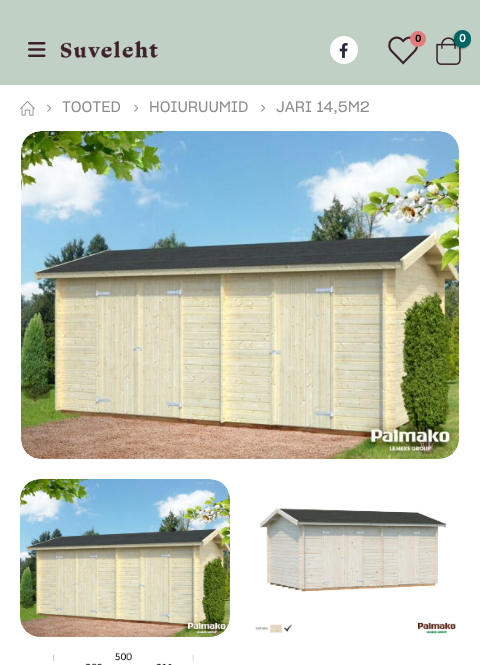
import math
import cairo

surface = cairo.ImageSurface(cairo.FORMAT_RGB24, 480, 665)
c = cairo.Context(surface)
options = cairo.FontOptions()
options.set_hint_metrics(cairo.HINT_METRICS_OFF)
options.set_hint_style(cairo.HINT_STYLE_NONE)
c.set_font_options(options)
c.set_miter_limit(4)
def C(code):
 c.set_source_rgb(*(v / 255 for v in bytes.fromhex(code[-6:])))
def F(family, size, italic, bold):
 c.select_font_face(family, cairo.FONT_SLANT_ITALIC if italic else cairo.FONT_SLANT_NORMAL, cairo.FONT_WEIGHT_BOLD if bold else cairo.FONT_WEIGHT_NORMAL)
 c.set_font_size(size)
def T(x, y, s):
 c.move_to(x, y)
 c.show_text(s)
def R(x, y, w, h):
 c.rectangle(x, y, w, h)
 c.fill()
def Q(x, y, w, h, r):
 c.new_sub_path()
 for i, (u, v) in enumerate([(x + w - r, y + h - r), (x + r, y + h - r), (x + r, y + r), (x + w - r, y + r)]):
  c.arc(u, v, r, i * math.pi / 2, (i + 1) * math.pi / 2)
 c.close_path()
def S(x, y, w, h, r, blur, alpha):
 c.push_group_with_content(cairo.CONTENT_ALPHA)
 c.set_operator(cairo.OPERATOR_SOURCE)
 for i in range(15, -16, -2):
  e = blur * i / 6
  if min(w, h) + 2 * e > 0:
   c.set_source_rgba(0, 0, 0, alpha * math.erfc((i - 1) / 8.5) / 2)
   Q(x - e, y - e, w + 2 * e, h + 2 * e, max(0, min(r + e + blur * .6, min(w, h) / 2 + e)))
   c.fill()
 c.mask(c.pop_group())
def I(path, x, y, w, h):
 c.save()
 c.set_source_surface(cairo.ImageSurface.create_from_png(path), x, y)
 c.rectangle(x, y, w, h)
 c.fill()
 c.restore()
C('ffffff')
c.paint()
C('c0d0c5')
R(0,0,480,85)
I('1.png',28,42,18,15)
I('2.png',60,40,98,18)
C('ffffff')
c.arc(344,50,14,0,2 * math.pi)
c.fill()
I('3.png',339,43,9,15)
I('4.png',388,36,30,29)
C('e27c7c')
c.arc(418,39,8,0,2 * math.pi)
c.fill()
F('Poppins SemiBold',10,0,0)
C('000000')
T(415,42,'0')
I('5.png',436,37,25,28)
C('000000')
S(453,31,17,18,8.5,1,.3)
C('006565')
Q(454,30,17,18,8.5)
c.fill()
F('Poppins SemiBold',11,0,0)
C('ffffff')
T(459,42,'0')
I('6.png',20,101,15,15)
I('7.png',47,104,5,8)
F('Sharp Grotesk',15,0,0)
C('8e8e8e')
T(62,112,'TOOTED')
I('7.png',134,104,5,8)
T(149,112,'HOIURUUMID')
I('7.png',261,104,5,8)
T(276,112,'JARI 14,5M2')
I('8.png',21,131,438,328)
I('9.png',20,479,210,158)
I('10.png',255,507,201,127)
I('11.png',53,652,141,13)
surface.write_to_png('o.png')
